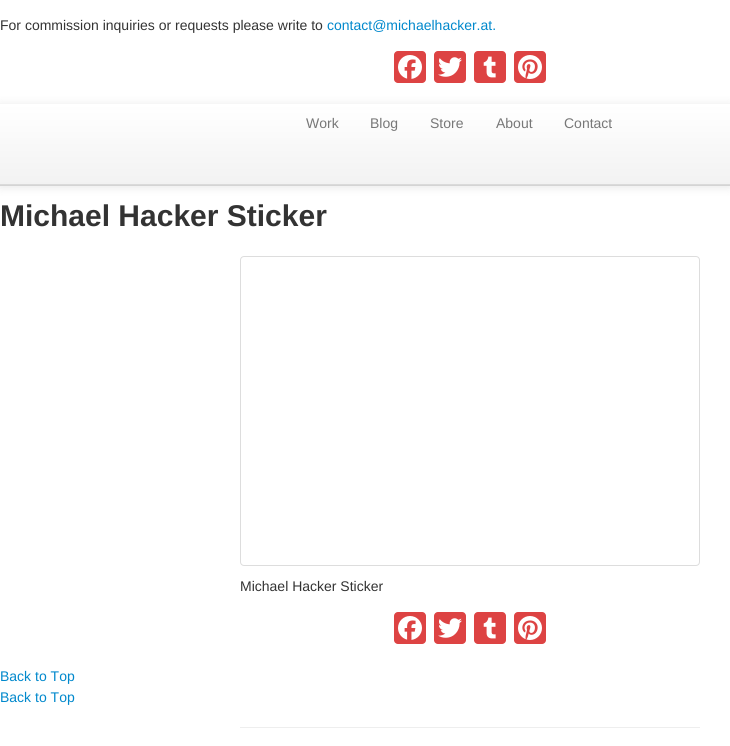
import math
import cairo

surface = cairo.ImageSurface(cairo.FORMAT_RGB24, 730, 746)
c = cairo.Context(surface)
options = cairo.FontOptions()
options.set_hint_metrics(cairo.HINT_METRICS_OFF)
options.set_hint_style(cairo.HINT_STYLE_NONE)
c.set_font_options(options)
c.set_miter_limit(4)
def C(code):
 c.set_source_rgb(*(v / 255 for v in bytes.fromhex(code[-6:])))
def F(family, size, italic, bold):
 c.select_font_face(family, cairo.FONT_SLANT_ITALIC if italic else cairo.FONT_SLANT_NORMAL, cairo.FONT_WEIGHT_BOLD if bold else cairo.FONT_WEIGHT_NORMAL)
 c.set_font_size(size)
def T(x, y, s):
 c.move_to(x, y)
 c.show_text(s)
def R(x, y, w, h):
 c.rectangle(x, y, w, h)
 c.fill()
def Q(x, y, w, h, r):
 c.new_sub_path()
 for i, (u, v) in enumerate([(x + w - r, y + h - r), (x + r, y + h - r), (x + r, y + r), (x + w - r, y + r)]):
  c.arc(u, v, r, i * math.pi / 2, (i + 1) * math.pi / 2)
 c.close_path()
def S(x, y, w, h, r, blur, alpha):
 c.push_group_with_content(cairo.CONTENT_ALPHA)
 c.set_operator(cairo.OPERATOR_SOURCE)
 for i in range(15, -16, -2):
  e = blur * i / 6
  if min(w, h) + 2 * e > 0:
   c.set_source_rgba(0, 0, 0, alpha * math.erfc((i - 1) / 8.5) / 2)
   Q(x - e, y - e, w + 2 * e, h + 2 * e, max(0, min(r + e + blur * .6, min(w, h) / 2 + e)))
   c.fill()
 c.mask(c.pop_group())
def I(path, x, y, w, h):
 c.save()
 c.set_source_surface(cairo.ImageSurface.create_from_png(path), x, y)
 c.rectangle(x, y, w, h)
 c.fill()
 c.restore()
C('ffffff')
c.paint()
F('Liberation Sans',14,0,0)
C('333333')
T(0,30,'For commission inquiries or requests please write to')
C('0088cc')
T(327,30,'contact@michaelhacker.at.')
C('dd4343')
Q(394,51,32,32,4)
c.fill()
I('1.png',398,55,24,24)
Q(434,51,32,32,4)
c.fill()
I('2.png',438,57,24,20)
Q(474,51,32,32,4)
c.fill()
I('3.png',483,56,13,22)
Q(514,51,32,32,4)
c.fill()
I('4.png',518,55,24,24)
C('000000')
S(0,105,730,82,0,5,.1)
gradient = cairo.LinearGradient(365,104,365,185)
gradient.add_color_stop_rgba(0,1,1,1,1)
gradient.add_color_stop_rgba(1,0.949,0.949,0.949,1)
c.set_source(gradient)
R(0,104,730,80)
C('dadada')
R(0,184,730,1)
C('d4d4d4')
R(0,185,730,1)
C('777777')
T(306,128,'Work')
T(370,128,'Blog')
T(430,128,'Store')
T(496,128,'About')
T(564,128,'Contact')
F('Liberation Sans',30,0,1)
C('333333')
T(0,226,'Michael Hacker Sticker')
Q(240.5,256.5,459,309,3.5)
C('dddddd')
c.set_line_width(1)
c.stroke()
F('Liberation Sans',14,0,0)
C('333333')
T(240,591,'Michael Hacker Sticker')
C('dd4343')
Q(394,612,32,32,4)
c.fill()
I('1.png',398,616,24,24)
Q(434,612,32,32,4)
c.fill()
I('2.png',438,618,24,20)
Q(474,612,32,32,4)
c.fill()
I('3.png',483,617,13,22)
Q(514,612,32,32,4)
c.fill()
I('4.png',518,616,24,24)
C('0088cc')
T(0,681,'Back to Top')
T(0,702,'Back to Top')
C('eeeeee')
R(240,727,460,1)
surface.write_to_png('o.png')
